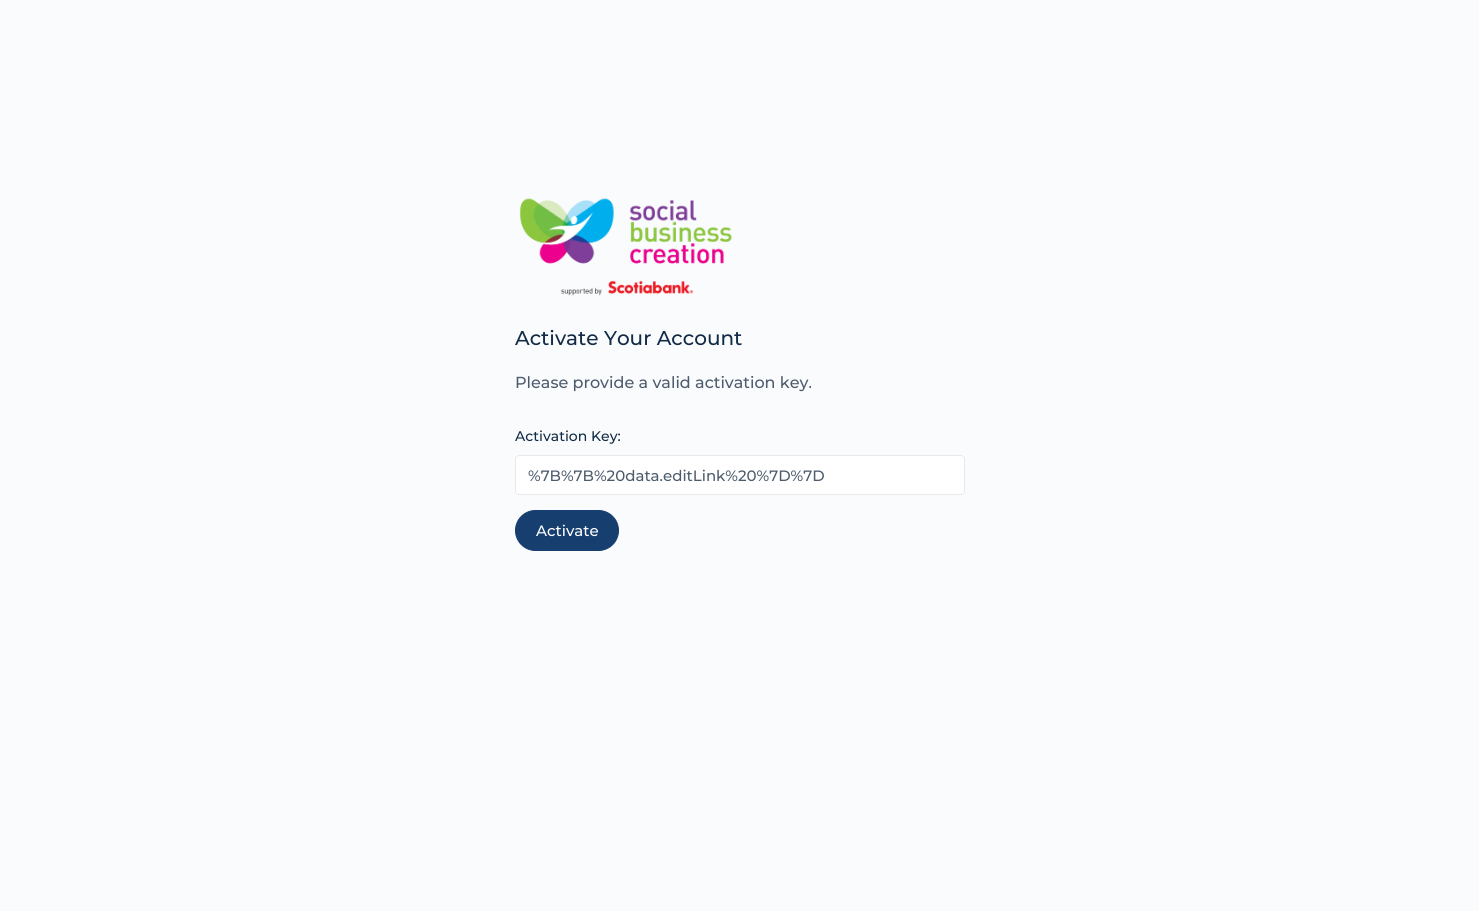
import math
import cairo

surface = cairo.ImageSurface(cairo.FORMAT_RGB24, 1479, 911)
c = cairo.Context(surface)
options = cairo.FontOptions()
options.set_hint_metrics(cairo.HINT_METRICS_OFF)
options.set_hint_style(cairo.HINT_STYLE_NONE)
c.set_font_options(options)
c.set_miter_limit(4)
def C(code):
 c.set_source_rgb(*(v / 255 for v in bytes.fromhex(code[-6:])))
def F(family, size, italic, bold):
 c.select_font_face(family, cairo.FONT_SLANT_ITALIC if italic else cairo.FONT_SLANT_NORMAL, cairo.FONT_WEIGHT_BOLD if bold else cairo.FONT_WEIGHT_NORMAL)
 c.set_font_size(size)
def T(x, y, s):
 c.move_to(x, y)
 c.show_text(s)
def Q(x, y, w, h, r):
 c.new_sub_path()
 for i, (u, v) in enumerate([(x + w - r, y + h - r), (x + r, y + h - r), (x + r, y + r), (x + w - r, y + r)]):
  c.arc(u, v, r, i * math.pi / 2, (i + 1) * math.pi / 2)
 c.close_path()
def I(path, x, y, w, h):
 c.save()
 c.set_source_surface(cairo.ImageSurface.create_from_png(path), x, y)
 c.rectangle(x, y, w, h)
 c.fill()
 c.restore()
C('fafbfd')
c.paint()
I('1.png',519,198,213,98)
F('Montserrat Thin',20,0,0)
C('122b46')
T(515,345,'Activate Your Account')
F('Montserrat Thin',16,0,0)
C('4d5c6d')
T(515,388,'Please provide a valid activation key.')
F('Montserrat Thin',14,0,0)
C('122b46')
T(515,441,'Activation Key:')
C('ffffff')
Q(515.5,455.5,449,39,3.5)
c.fill_preserve()
C('e7e9ec')
c.set_line_width(1)
c.stroke()
F('Montserrat Thin',15,0,0)
C('4d5c6d')
T(528,481,'%7B%7B%20data.editLink%20%7D%7D')
C('163e6f')
Q(515.5,510.5,103,40,20)
c.fill_preserve()
c.stroke()
C('ffffff')
T(536,536,'Activate')
surface.write_to_png('o.png')
